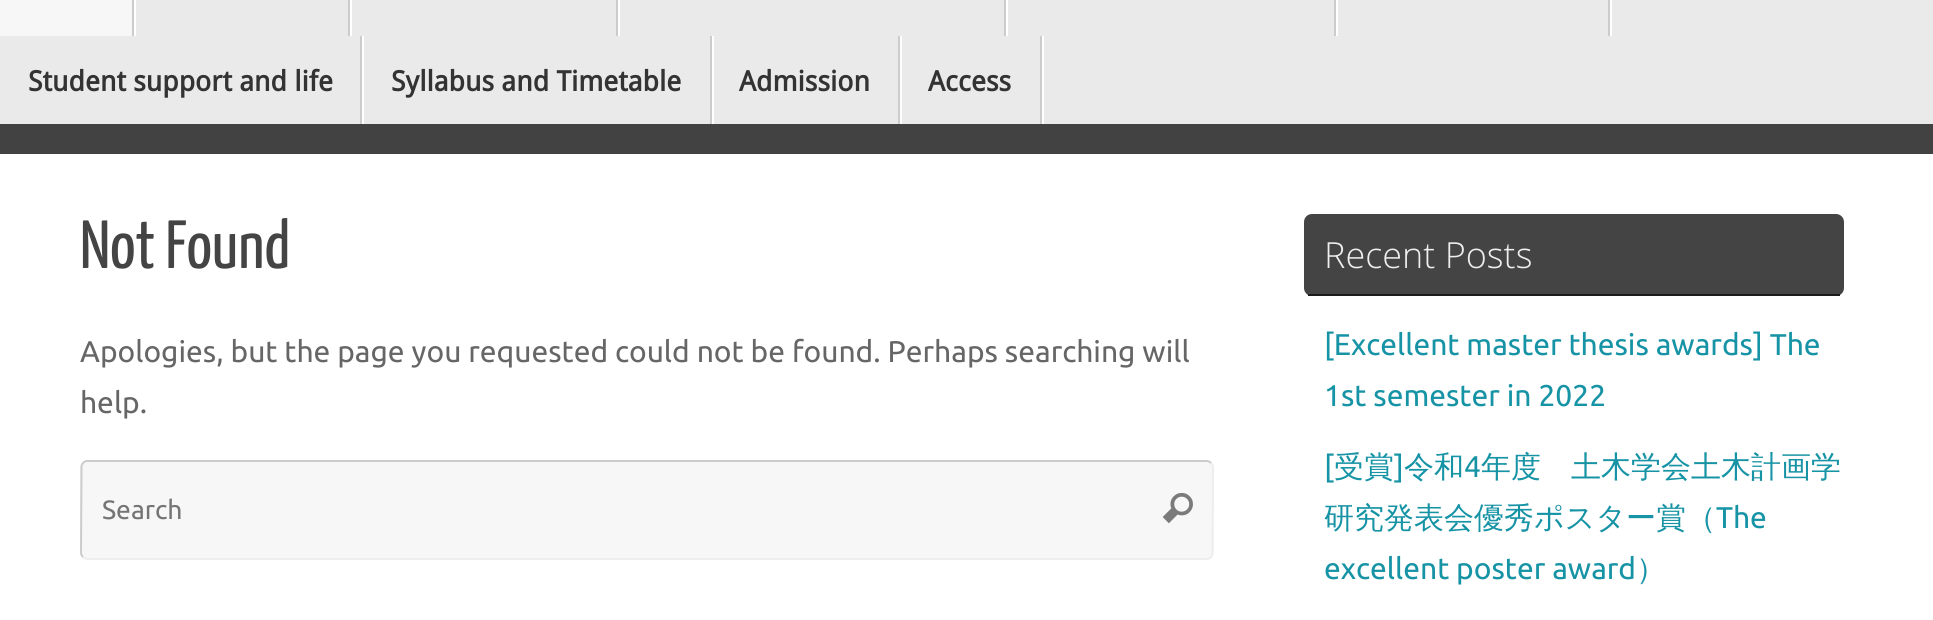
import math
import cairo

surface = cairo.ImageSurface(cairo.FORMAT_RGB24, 1933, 620)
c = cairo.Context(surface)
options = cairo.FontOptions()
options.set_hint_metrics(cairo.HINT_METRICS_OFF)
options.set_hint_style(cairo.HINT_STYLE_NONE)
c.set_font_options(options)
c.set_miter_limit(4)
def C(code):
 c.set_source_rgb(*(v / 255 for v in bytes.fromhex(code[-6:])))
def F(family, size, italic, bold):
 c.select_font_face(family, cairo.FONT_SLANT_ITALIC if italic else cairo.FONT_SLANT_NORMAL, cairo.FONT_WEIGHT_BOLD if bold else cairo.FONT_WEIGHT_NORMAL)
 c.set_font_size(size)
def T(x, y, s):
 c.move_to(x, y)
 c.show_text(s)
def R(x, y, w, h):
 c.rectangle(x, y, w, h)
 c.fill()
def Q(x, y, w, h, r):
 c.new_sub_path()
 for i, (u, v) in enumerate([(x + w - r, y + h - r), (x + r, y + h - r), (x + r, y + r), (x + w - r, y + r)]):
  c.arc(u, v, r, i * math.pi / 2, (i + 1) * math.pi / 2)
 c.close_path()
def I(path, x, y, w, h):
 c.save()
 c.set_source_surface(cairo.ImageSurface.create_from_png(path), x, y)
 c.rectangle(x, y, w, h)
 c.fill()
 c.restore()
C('424242')
c.paint()
C('eaeaea')
R(0,0,1933,124)
C('f7f7f7')
R(0,0,132,36)
C('ffffff')
R(134,0,2,36)
C('cccccc')
R(132,0,2,36)
C('ffffff')
R(350,0,2,36)
C('cccccc')
R(348,0,2,36)
C('ffffff')
R(618,0,2,36)
C('cccccc')
R(616,0,2,36)
C('ffffff')
R(1006,0,2,36)
C('cccccc')
R(1004,0,2,36)
C('ffffff')
R(1336,0,2,36)
C('cccccc')
R(1334,0,2,36)
C('ffffff')
R(1610,0,2,36)
C('cccccc')
R(1608,0,2,36)
C('ffffff')
R(362,36,2,88)
C('cccccc')
R(360,36,2,88)
F('Droid Sans',28,0,1)
C('333333')
T(28,91,'Student support and life')
C('ffffff')
R(712,36,2,88)
C('cccccc')
R(710,36,2,88)
C('333333')
T(391,91,'Syllabus and Timetable')
C('ffffff')
R(900,36,2,88)
C('cccccc')
R(898,36,2,88)
C('333333')
T(739,91,'Admission')
C('ffffff')
R(1042,36,2,88)
C('cccccc')
R(1040,36,2,88)
C('333333')
T(928,91,'Access')
C('ffffff')
R(0,154,1933,466)
F('Yanone Kaffeesatz',68,0,0)
C('444444')
T(80,268,'Not Found')
F('Ubuntu',30,0,0)
C('666666')
T(80,362,'Apologies, but the page you requested could not be found. Perhaps searching will')
T(80,413,'help.')
C('f7f7f7')
Q(80,460,1134,100,8)
c.fill()
c.new_path()
c.move_to(1211,463)
c.curve_to(1212,464,1213,465.5,1213,467.5)
c.line_to(1212.5,554)
c.curve_to(1212,556.5,1210,558.5,1207.5,559)
c.line_to(88,559)
c.curve_to(86,559,84.5,558.5,83,557)
C('eeeeee')
c.stroke()
c.new_path()
c.move_to(83,557)
c.curve_to(82,556,81,554.5,81,552.5)
c.line_to(81.5,466)
c.curve_to(82,463.5,84,461.5,86.5,461)
c.line_to(1206,461)
c.curve_to(1208,461,1209.5,461.5,1211,463)
C('cccccc')
c.stroke()
F('Ubuntu',26.5,0,0)
C('757575')
T(102,519,'Search')
I('1.png',1162,492,31,32)
C('444444')
Q(1304,214,540,82,8)
c.fill()
C('1c1c1c')
R(1308,294,532,2)
F('Open Sans Light',36,0,0)
C('eeeeee')
T(1324,268,'Recent Posts')
F('Ubuntu',30,0,0)
C('1693a5')
T(1324,355,'[Excellent master thesis awards] The')
T(1324,406,'1st semester in 2022')
T(1324,477,'[')
F('WenQuanYi Zen Hei Medium',30,0,0)
T(1334,477,'受賞')
F('Ubuntu',30,0,0)
T(1394,477,']')
F('WenQuanYi Zen Hei Medium',30,0,0)
T(1404,477,'令和')
F('Ubuntu',30,0,0)
T(1464,477,'4')
F('WenQuanYi Zen Hei Medium',30,0,0)
T(1481,477,'年度　土木学会土木計画学')
T(1324,528,'研究発表会優秀ポスター賞（')
F('Ubuntu',30,0,0)
T(1716,528,'The')
T(1324,579,'excellent poster award')
F('WenQuanYi Zen Hei Medium',30,0,0)
T(1636,579,'）')
surface.write_to_png('o.png')
